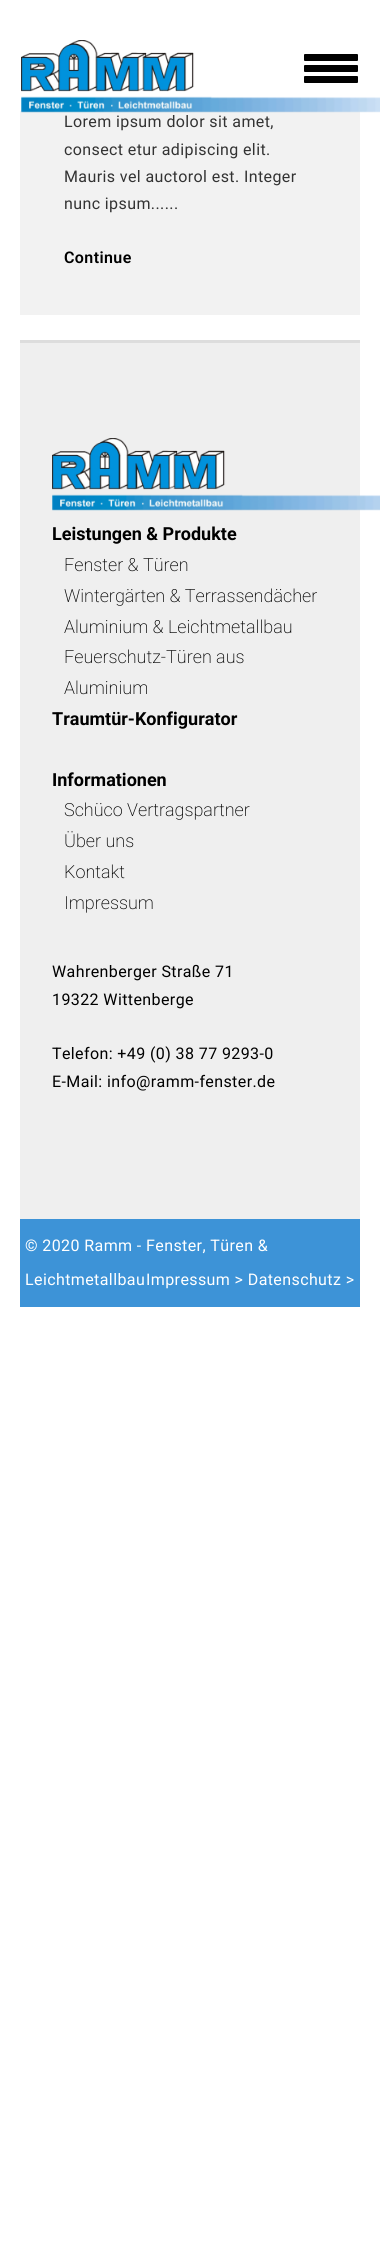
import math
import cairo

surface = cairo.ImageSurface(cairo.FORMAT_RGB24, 380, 2254)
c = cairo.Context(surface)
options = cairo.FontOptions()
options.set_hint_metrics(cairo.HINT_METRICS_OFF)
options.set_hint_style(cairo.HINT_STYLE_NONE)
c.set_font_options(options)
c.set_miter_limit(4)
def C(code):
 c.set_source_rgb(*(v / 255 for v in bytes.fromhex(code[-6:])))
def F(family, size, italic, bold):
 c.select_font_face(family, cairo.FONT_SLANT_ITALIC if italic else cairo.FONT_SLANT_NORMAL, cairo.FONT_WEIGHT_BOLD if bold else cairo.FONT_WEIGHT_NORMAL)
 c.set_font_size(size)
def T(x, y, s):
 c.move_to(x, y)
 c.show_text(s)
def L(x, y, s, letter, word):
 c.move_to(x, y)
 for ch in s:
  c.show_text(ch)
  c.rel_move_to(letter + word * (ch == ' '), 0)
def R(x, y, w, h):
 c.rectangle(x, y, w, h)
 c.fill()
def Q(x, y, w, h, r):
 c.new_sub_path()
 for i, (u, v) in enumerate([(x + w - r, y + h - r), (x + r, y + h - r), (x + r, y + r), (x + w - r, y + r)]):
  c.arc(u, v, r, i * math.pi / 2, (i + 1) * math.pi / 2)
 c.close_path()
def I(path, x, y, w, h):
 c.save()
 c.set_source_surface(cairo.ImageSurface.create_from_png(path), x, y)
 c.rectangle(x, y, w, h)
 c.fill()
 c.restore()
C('ffffff')
c.paint()
C('f2f2f2')
R(20,111,340,204)
I('1.png',21,40,359,73)
C('000000')
Q(304,54,54,7,1)
c.fill()
Q(304,65,54,7,1)
c.fill()
Q(304,76,54,7,1)
c.fill()
F('Roboto',16,0,0)
C('333333')
L(64,127,'Lorem ipsum dolor sit amet,',.4,0)
L(64,155,'consect etur adipiscing elit.',.4,0)
L(64,182,'Mauris vel auctorol est. Integer',.4,0)
L(64,209,'nunc ipsum......',.4,0)
F('Roboto SemiBold',16,0,0)
C('000000')
L(64,263,'Continue',.4,0)
C('efefef')
R(20,343,340,876)
C('dddddd')
R(20,340,340,3)
I('2.png',52,438,328,73)
F('Roboto',18,0,1)
C('000000')
T(52,540,'Leistungen & Produkte')
F('Roboto ExtraLight',18,0,0)
T(64,571,'Fenster & Türen')
T(64,602,'Wintergärten & Terrassendächer')
T(64,633,'Aluminium & Leichtmetallbau')
T(64,663,'Feuerschutz-Türen aus')
T(64,694,'Aluminium')
F('Roboto',18,0,1)
T(52,725,'Traumtür-Konfigurator')
T(52,786,'Informationen')
F('Roboto ExtraLight',18,0,0)
T(64,816,'Schüco Vertragspartner')
T(64,847,'Über uns')
T(64,878,'Kontakt')
T(64,909,'Impressum')
F('Roboto',16,0,0)
L(52,977,'Wahrenberger Straße 71',.4,0)
L(52,1005,'19322 Wittenberge',.4,0)
L(52,1059,'Telefon: +49 (0) 38 77 9293-0',.4,0)
L(52,1087,'E-Mail: info@ramm-fenster.de',.4,0)
C('3d93d7')
R(20,1219,340,88)
C('ffffff')
L(25,1251,'© 2020 Ramm - Fenster, Türen &',.4,0)
L(25,1285,'Leichtmetallbau',.4,0)
L(146,1285,'Impressum > Datenschutz >',.4,0)
surface.write_to_png('o.png')
